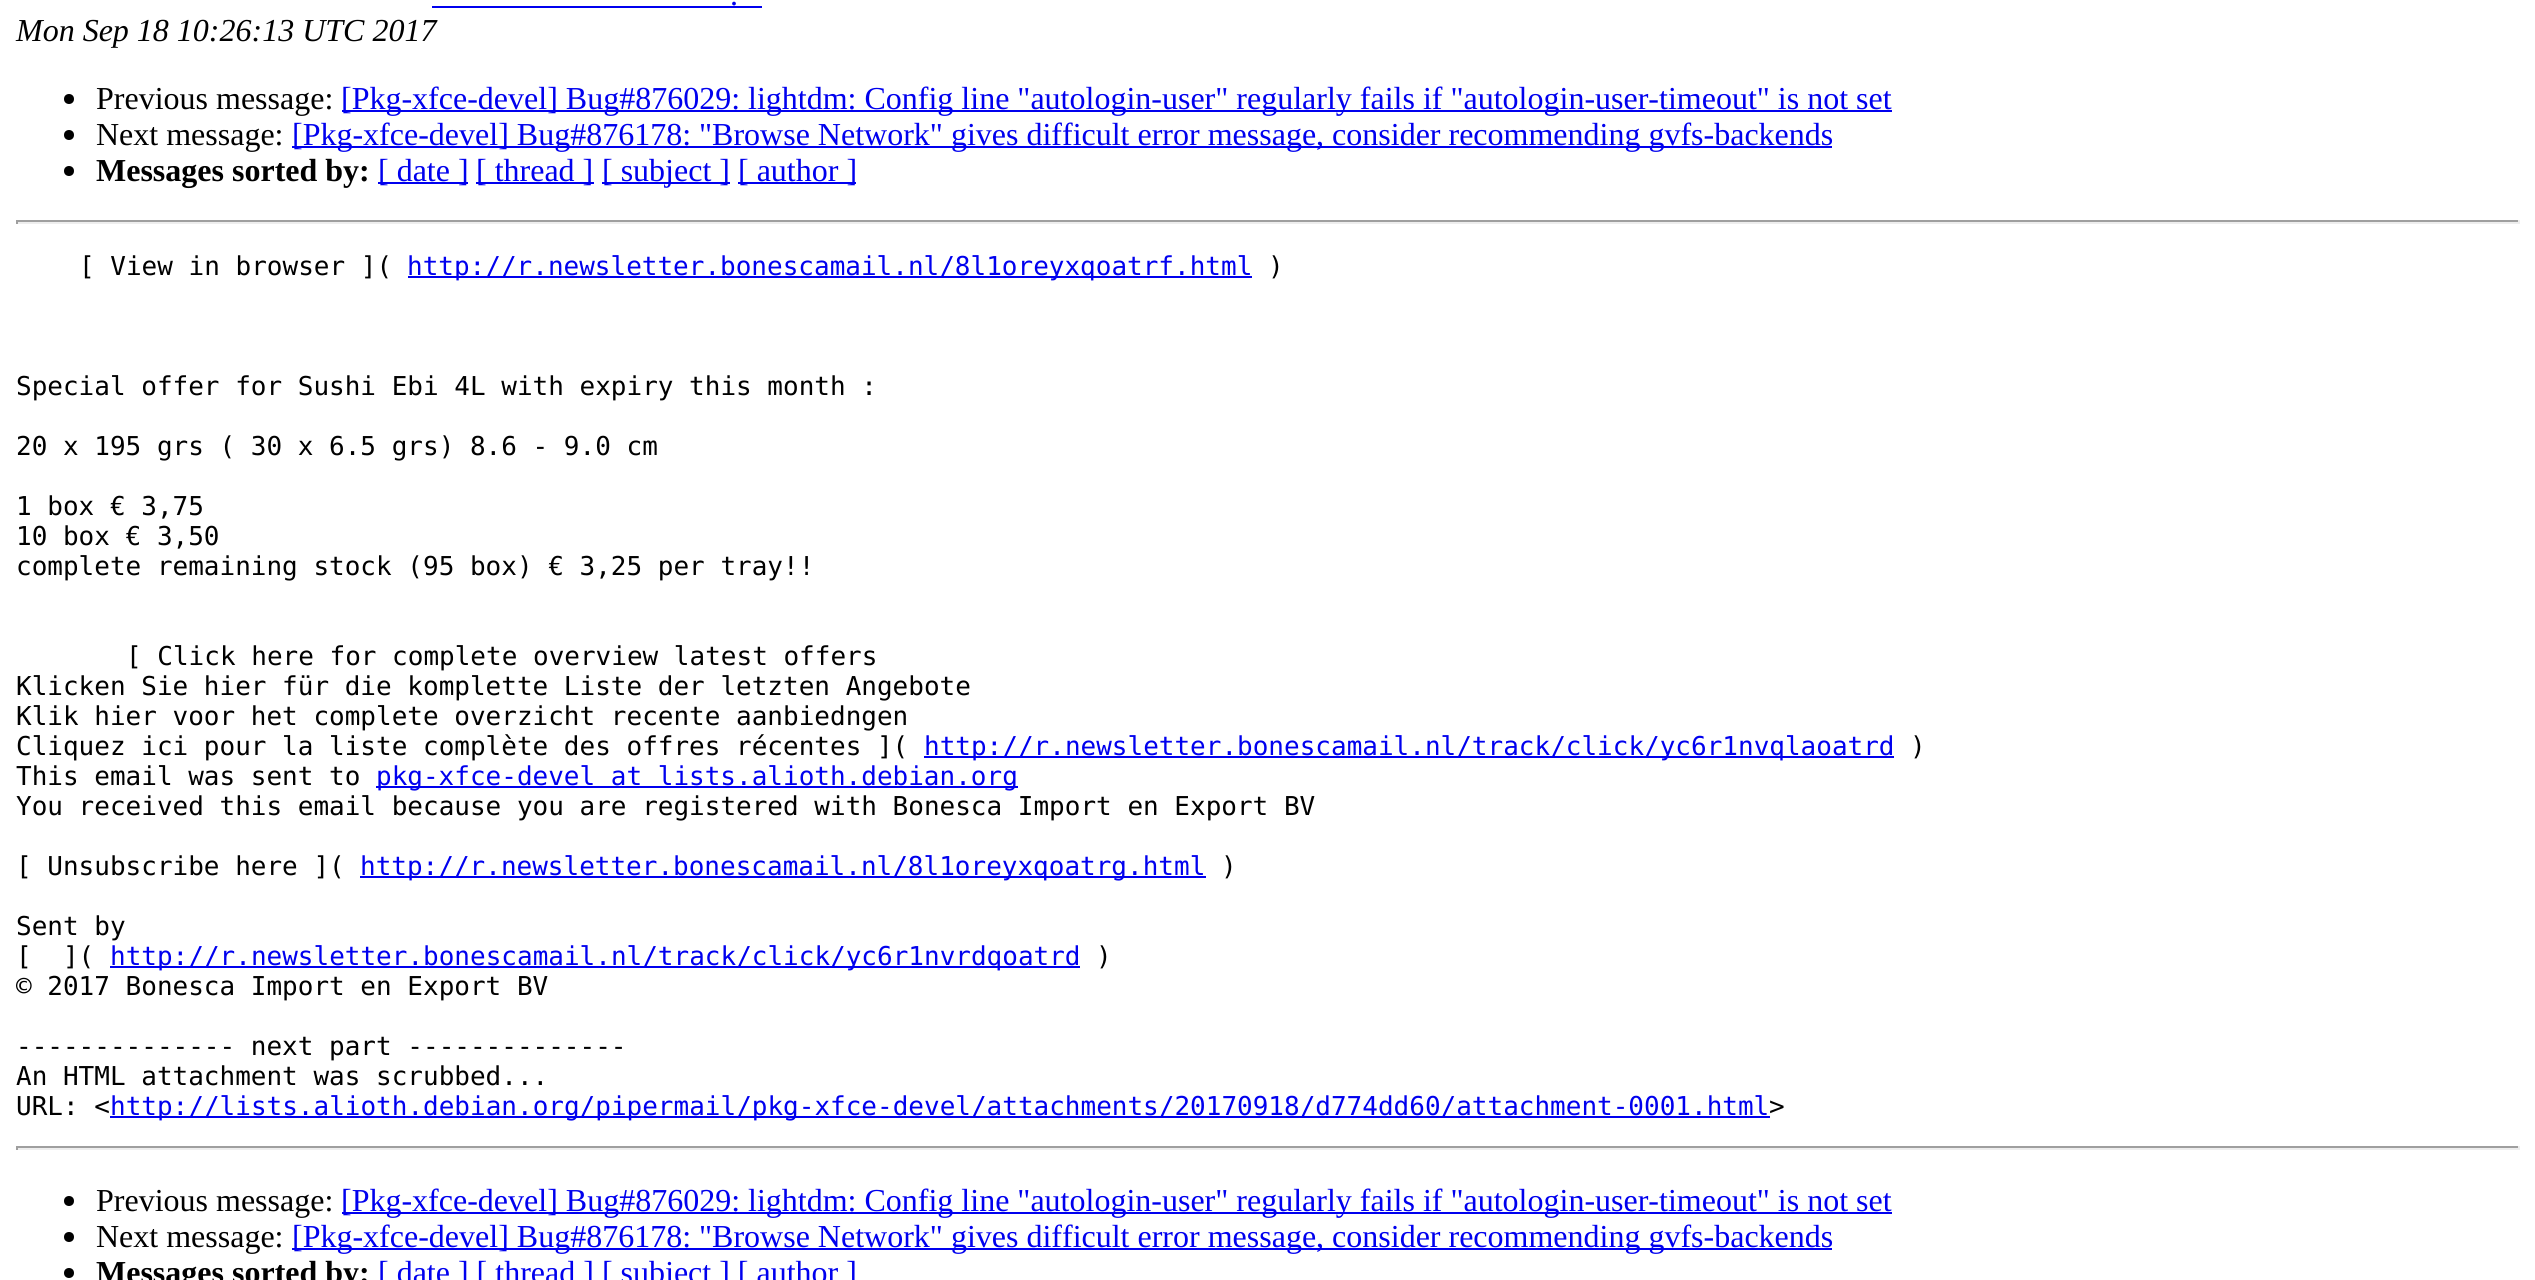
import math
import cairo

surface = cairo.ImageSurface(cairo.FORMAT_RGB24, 2535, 1280)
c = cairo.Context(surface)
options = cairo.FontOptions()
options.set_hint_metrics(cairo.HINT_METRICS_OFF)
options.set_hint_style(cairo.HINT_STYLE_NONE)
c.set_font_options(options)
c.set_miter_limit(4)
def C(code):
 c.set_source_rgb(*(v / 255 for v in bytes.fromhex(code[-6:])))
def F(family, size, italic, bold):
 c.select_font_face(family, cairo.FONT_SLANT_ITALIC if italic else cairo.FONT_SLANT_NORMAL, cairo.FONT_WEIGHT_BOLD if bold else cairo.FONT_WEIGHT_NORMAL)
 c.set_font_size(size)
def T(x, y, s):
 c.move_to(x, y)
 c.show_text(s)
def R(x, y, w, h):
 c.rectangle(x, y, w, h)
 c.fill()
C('ffffff')
c.paint()
F('Liberation Serif',32,0,0)
C('0000ee')
T(730,5,'.')
R(432,6,330,2)
F('Liberation Serif',32,1,0)
C('000000')
T(16,41,'Mon Sep 18 10:26:13 UTC 2017')
c.new_path()
c.arc(69,99,5,0,2 * math.pi)
c.fill()
F('Liberation Serif',32,0,0)
T(96,109,'Previous message:')
C('0000ee')
R(342,110,1550,2)
T(341,109,'[Pkg-xfce-devel] Bug#876029: lightdm: Config line "autologin-user" regularly fails if "autologin-user-timeout" is not set')
C('000000')
c.new_path()
c.arc(69,135,5,0,2 * math.pi)
c.fill()
T(96,145,'Next message:')
C('0000ee')
R(292,146,1540,2)
T(292,145,'[Pkg-xfce-devel] Bug#876178: "Browse Network" gives difficult error message, consider recommending gvfs-backends')
C('000000')
c.new_path()
c.arc(69,171,5,0,2 * math.pi)
c.fill()
F('Liberation Serif',32,0,1)
T(96,181,'Messages sorted by:')
C('0000ee')
R(378,182,90,2)
F('Liberation Serif',32,0,0)
T(378,181,'[ date ]')
R(476,182,118,2)
T(476,181,'[ thread ]')
R(602,182,128,2)
T(602,181,'[ subject ]')
R(738,182,118,2)
T(738,181,'[ author ]')
C('9f9f9f')
R(16,220,2504,2)
C('eeeeee')
R(2518,220,2,4)
R(16,222,2504,2)
C('9f9f9f')
R(16,220,2,4)
F('DejaVu Sans Mono',26,0,0)
C('000000')
T(79,275,'[ View in browser ](')
C('0000ee')
R(408,276,844,2)
T(407,275,'http://r.newsletter.bonescamail.nl/8l1oreyxqoatrf.html')
C('000000')
T(1268,275,')')
T(16,395,'Special offer for Sushi Ebi 4L with expiry this month :')
T(16,455,'20 x 195 grs ( 30 x 6.5 grs) 8.6 - 9.0 cm')
T(16,515,'1 box € 3,75')
T(16,545,'10 box € 3,50')
T(16,575,'complete remaining stock (95 box) € 3,25 per tray!!')
T(126,665,'[ Click here for complete overview latest offers')
T(16,695,'Klicken Sie hier für die komplette Liste der letzten Angebote')
T(16,725,'Klik hier voor het complete overzicht recente aanbiedngen')
T(16,755,'Cliquez ici pour la liste complète des offres récentes ](')
C('0000ee')
R(924,756,970,2)
T(924,755,'http://r.newsletter.bonescamail.nl/track/click/yc6r1nvqlaoatrd')
C('000000')
T(1910,755,')')
T(16,785,'This email was sent to')
C('0000ee')
R(376,786,642,2)
T(376,785,'pkg-xfce-devel at lists.alioth.debian.org')
C('000000')
T(16,815,'You received this email because you are registered with Bonesca Import en Export BV')
T(16,875,'[ Unsubscribe here ](')
C('0000ee')
R(360,876,846,2)
T(360,875,'http://r.newsletter.bonescamail.nl/8l1oreyxqoatrg.html')
C('000000')
T(1221,875,')')
T(16,935,'Sent by')
T(16,965,'[  ](')
C('0000ee')
R(110,966,970,2)
T(110,965,'http://r.newsletter.bonescamail.nl/track/click/yc6r1nvrdqoatrd')
C('000000')
T(1096,965,')')
T(16,995,'© 2017 Bonesca Import en Export BV')
T(16,1055,'-------------- next part --------------')
T(16,1085,'An HTML attachment was scrubbed...')
T(16,1115,'URL: <')
C('0000ee')
R(110,1116,1660,2)
T(110,1115,'http://lists.alioth.debian.org/pipermail/pkg-xfce-devel/attachments/20170918/d774dd60/attachment-0001.html')
C('000000')
T(1769,1115,'>')
C('9f9f9f')
R(16,1146,2504,2)
C('eeeeee')
R(2518,1146,2,4)
R(16,1148,2504,2)
C('9f9f9f')
R(16,1146,2,4)
C('000000')
c.new_path()
c.arc(69,1201,5,0,2 * math.pi)
c.fill()
F('Liberation Serif',32,0,0)
T(96,1211,'Previous message:')
C('0000ee')
R(342,1212,1550,2)
T(341,1211,'[Pkg-xfce-devel] Bug#876029: lightdm: Config line "autologin-user" regularly fails if "autologin-user-timeout" is not set')
C('000000')
c.new_path()
c.arc(69,1237,5,0,2 * math.pi)
c.fill()
T(96,1247,'Next message:')
C('0000ee')
R(292,1248,1540,2)
T(292,1247,'[Pkg-xfce-devel] Bug#876178: "Browse Network" gives difficult error message, consider recommending gvfs-backends')
C('000000')
c.new_path()
c.arc(69,1273,5,0,2 * math.pi)
c.fill()
F('Liberation Serif',32,0,1)
T(96,1283,'Messages sorted by:')
F('Liberation Serif',32,0,0)
C('0000ee')
T(378,1283,'[ date ] [ thread ] [ subject ] [ author ]')
surface.write_to_png('o.png')
